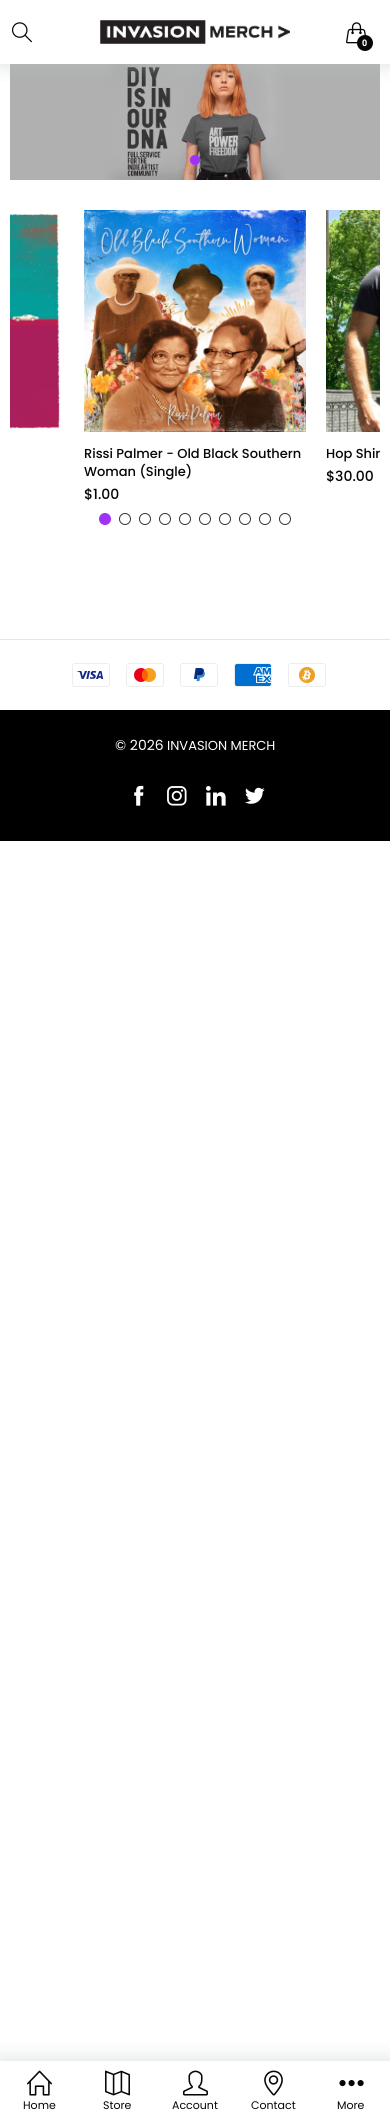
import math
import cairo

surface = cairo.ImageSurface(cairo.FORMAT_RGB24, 390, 2121)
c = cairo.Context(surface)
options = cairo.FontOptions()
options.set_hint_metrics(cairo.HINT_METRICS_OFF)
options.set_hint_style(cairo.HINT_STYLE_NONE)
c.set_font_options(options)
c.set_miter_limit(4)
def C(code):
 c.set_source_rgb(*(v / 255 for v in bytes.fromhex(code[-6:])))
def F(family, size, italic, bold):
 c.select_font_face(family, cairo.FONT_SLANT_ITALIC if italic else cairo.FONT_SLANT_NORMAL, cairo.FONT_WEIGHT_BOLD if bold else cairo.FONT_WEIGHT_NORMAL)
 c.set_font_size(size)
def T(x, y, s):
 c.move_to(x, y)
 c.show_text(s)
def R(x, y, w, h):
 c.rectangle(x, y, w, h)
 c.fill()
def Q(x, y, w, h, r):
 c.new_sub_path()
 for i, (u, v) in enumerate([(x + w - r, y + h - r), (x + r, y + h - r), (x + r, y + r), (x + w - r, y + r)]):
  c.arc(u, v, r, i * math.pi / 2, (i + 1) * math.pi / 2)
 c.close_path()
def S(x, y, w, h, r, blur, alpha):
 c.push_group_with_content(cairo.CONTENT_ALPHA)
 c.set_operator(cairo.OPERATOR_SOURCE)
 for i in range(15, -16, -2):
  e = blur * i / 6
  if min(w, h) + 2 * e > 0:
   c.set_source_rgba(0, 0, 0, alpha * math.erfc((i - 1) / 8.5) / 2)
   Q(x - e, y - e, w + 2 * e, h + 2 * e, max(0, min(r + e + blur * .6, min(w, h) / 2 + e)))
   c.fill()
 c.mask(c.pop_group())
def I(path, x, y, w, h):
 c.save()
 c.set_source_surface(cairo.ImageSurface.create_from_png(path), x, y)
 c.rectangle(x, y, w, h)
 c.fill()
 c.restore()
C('ffffff')
c.paint()
I('4.png',10,64,370,116)
c.save()
c.rectangle(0,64,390,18)
c.clip()
C('babfc2')
S(0,1,390,64,0,10,.5)
c.restore()
I('1.png',12,22,20,21)
I('2.png',100,20,190,24)
I('3.png',346,22,20,22)
C('060606')
c.arc(365,43,8,0,2 * math.pi)
c.fill()
F('Open Sans',9,0,1)
C('ffffff')
T(362,46,'0')
C('a031f7')
c.new_path()
c.arc(195,160,4.5,0,2 * math.pi)
c.fill_preserve()
c.set_line_width(1)
c.stroke()
I('5.png',10,213,51,218)
I('6.png',84,210,222,222)
F('Poppins Medium',13,0,0)
C('060606')
T(84,458,'Rissi Palmer - Old Black Southern')
T(84,476,'Woman (Single)')
F('Poppins Medium',14,0,0)
T(84,499,'$1.00')
I('7.png',326,210,54,222)
F('Poppins Medium',13,0,0)
T(326,458,'Hop Shir')
F('Poppins Medium',14,0,0)
T(326,481,'$30.00')
C('a031f7')
c.new_path()
c.arc(105,519,5.5,0,2 * math.pi)
c.fill_preserve()
c.stroke()
c.arc(125,519,5.5,0,2 * math.pi)
C('333333')
c.stroke()
c.arc(145,519,5.5,0,2 * math.pi)
c.stroke()
c.arc(165,519,5.5,0,2 * math.pi)
c.stroke()
c.arc(185,519,5.5,0,2 * math.pi)
c.stroke()
c.arc(205,519,5.5,0,2 * math.pi)
c.stroke()
c.arc(225,519,5.5,0,2 * math.pi)
c.stroke()
c.arc(245,519,5.5,0,2 * math.pi)
c.stroke()
c.arc(265,519,5.5,0,2 * math.pi)
c.stroke()
c.arc(285,519,5.5,0,2 * math.pi)
c.stroke()
C('e5e5e5')
R(0,639,390,1)
I('8.png',72,663,38,24)
I('9.png',126,663,38,24)
I('10.png',180,663,38,24)
I('11.png',234,663,38,24)
I('12.png',288,663,38,24)
C('000000')
R(0,710,390,131)
F('Poppins',14,0,0)
C('ffffff')
T(115,750,'© 2026')
F('Poppins',13,0,0)
T(167,750,'INVASION MERCH')
I('13.png',134,785,10,21)
I('14.png',167,786,20,20)
I('15.png',206,786,20,20)
I('16.png',245,787,20,17)
c.save()
c.rectangle(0,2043,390,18)
c.clip()
C('babfc2')
S(0,2060,390,60,0,10,.5)
c.restore()
I('17.png',27,2070,25,26)
F('Poppins',11,0,0)
C('060606')
T(23,2109,'Home')
I('18.png',105,2070,25,26)
T(103,2109,'Store')
I('19.png',183,2070,25,26)
T(172,2109,'Account')
I('20.png',264,2070,19,26)
T(251,2109,'Contact')
I('21.png',339,2080,25,7)
T(337,2109,'More')
surface.write_to_png('o.png')
